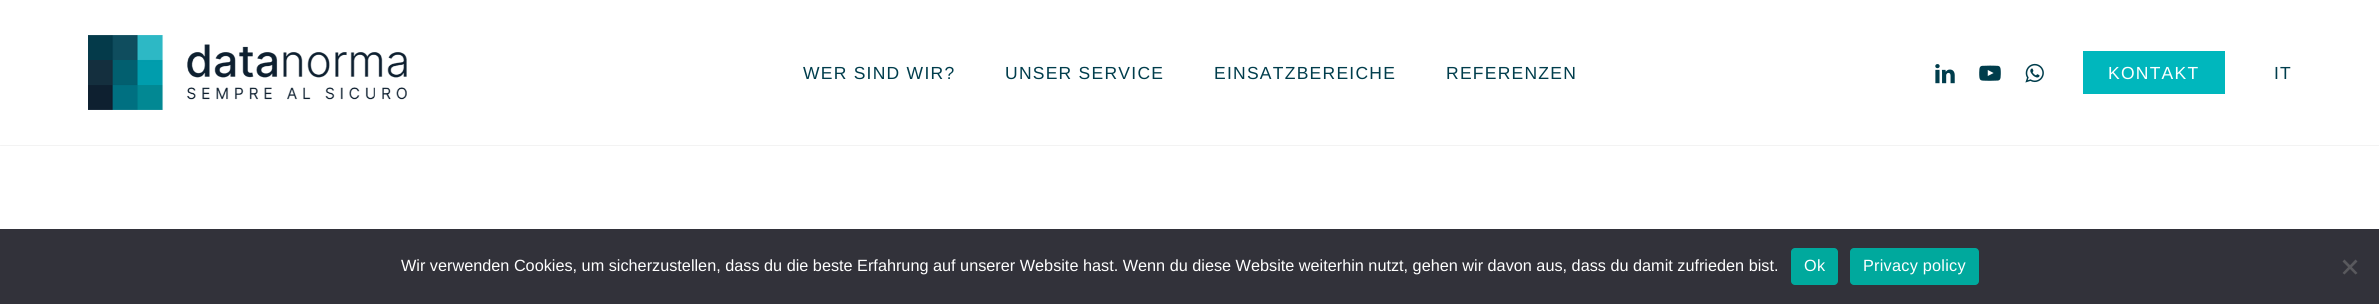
import math
import cairo

surface = cairo.ImageSurface(cairo.FORMAT_RGB24, 2379, 304)
c = cairo.Context(surface)
options = cairo.FontOptions()
options.set_hint_metrics(cairo.HINT_METRICS_OFF)
options.set_hint_style(cairo.HINT_STYLE_NONE)
c.set_font_options(options)
c.set_miter_limit(4)
def C(code):
 c.set_source_rgb(*(v / 255 for v in bytes.fromhex(code[-6:])))
def F(family, size, italic, bold):
 c.select_font_face(family, cairo.FONT_SLANT_ITALIC if italic else cairo.FONT_SLANT_NORMAL, cairo.FONT_WEIGHT_BOLD if bold else cairo.FONT_WEIGHT_NORMAL)
 c.set_font_size(size)
def T(x, y, s):
 c.move_to(x, y)
 c.show_text(s)
def L(x, y, s, letter, word):
 c.move_to(x, y)
 for ch in s:
  c.show_text(ch)
  c.rel_move_to(letter + word * (ch == ' '), 0)
def R(x, y, w, h):
 c.rectangle(x, y, w, h)
 c.fill()
def Q(x, y, w, h, r):
 c.new_sub_path()
 for i, (u, v) in enumerate([(x + w - r, y + h - r), (x + r, y + h - r), (x + r, y + r), (x + w - r, y + r)]):
  c.arc(u, v, r, i * math.pi / 2, (i + 1) * math.pi / 2)
 c.close_path()
def S(x, y, w, h, r, blur, alpha):
 c.push_group_with_content(cairo.CONTENT_ALPHA)
 c.set_operator(cairo.OPERATOR_SOURCE)
 for i in range(15, -16, -2):
  e = blur * i / 6
  if min(w, h) + 2 * e > 0:
   c.set_source_rgba(0, 0, 0, alpha * math.erfc((i - 1) / 8.5) / 2)
   Q(x - e, y - e, w + 2 * e, h + 2 * e, max(0, min(r + e + blur * .6, min(w, h) / 2 + e)))
   c.fill()
 c.mask(c.pop_group())
def I(path, x, y, w, h):
 c.save()
 c.set_source_surface(cairo.ImageSurface.create_from_png(path), x, y)
 c.rectangle(x, y, w, h)
 c.fill()
 c.restore()
C('ffffff')
c.paint()
c.save()
c.rectangle(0,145,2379,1)
c.clip()
C('000000')
S(0,0,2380,145,0,1,.14)
c.restore()
I('1.png',88,35,319,75)
F('Liberation Sans',17.5,0,0)
C('003d4c')
L(803,79,'WER SIND WIR?',1.25,0)
L(1005,79,'UNSER SERVICE',1.25,0)
L(1214,79,'EINSATZBEREICHE',1.25,0)
L(1446,79,'REFERENZEN',1.25,0)
I('2.png',1935,64,20,20)
I('3.png',1979,65,22,16)
I('4.png',2025,63,19,20)
C('00b7bd')
R(2083,51,142,43)
C('ffffff')
L(2108,79,'KONTAKT',1.25,0)
C('003d4c')
L(2274,79,'IT',1.25,0)
C('32323a')
R(0,229,2379,75)
F('Liberation Sans',16.25,0,0)
C('ffffff')
T(401,271,'Wir verwenden Cookies, um sicherzustellen, dass du die beste Erfahrung auf unserer Website hast. Wenn du diese Website weiterhin nutzt, gehen wir davon aus, dass du damit zufrieden bist.')
C('00a99d')
Q(1791,248,47,37,4)
c.fill()
C('ffffff')
L(1804,271,'Ok',.25,0)
C('00a99d')
Q(1850,248,129,37,4)
c.fill()
C('ffffff')
L(1863,271,'Privacy policy',.25,0)
C('59595d')
c.new_path()
c.move_to(2355.5,259.5)
c.line_to(2357.5,261.5)
c.line_to(2344.5,274.5)
c.line_to(2342.5,273)
c.close_path()
c.fill()
c.new_path()
c.move_to(2342.5,261.5)
c.line_to(2344.5,259.5)
c.line_to(2357.5,273)
c.line_to(2355.5,274.5)
c.close_path()
c.fill()
surface.write_to_png('o.png')
